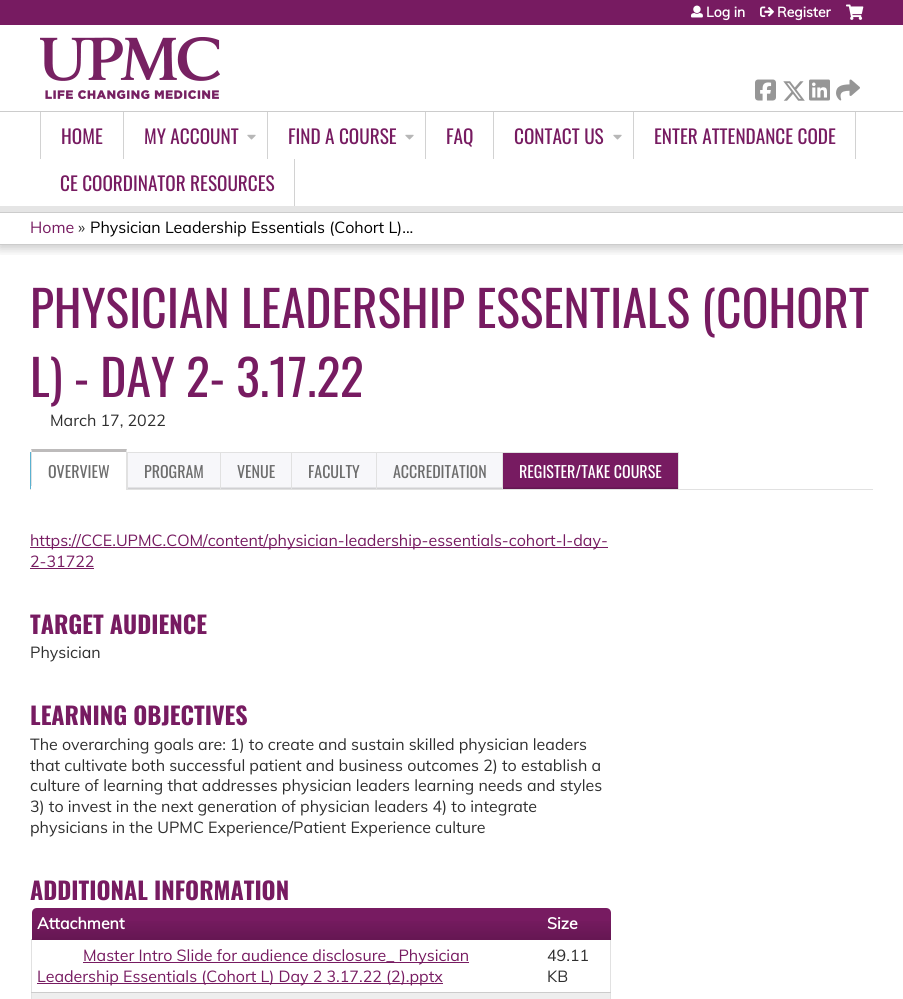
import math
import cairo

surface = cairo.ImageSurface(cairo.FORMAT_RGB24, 903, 999)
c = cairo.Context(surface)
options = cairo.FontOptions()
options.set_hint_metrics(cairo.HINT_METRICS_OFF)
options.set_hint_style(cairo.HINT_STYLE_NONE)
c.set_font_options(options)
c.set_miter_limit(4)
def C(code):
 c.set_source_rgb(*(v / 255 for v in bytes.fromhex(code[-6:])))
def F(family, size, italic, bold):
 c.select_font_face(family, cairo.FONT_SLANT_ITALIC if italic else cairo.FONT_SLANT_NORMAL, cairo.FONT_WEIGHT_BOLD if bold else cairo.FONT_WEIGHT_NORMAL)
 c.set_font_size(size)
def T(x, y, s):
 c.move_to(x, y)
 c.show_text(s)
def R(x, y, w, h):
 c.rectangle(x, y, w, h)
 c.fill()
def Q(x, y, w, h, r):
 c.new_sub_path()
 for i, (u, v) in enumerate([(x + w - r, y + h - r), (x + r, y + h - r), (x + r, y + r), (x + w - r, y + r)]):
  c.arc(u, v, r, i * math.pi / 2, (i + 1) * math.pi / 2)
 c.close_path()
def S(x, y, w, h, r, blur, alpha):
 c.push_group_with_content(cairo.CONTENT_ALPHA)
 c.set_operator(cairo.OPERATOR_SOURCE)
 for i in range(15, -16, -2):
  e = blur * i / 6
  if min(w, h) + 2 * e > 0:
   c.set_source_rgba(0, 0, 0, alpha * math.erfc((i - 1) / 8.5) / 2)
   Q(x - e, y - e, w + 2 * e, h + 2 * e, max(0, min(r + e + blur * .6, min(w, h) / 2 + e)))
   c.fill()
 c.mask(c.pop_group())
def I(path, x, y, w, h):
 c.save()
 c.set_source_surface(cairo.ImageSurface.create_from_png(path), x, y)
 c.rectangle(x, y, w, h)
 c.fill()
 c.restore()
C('ffffff')
c.paint()
C('771b61')
R(0,0,903,25)
I('1.png',691,5,12,13)
F('Muli',14,0,1)
C('ffffff')
T(706,17,'Log in')
I('2.png',760,6,14,11)
T(777,17,'Register')
I('3.png',846,4,18,16)
I('4.png',755,79,21,22)
I('5.png',783,81,22,20)
I('6.png',809,79,21,22)
I('7.png',836,79,24,22)
I('8.png',40,37,180,62)
C('cccccc')
R(0,111,903,1)
c.save()
c.rectangle(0,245,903,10)
c.clip()
C('000000')
S(-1,214,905,35,0,5,.2)
c.restore()
C('e5e5e5')
R(0,206,903,6)
C('d2d2d2')
R(123,112,1,47)
R(40,112,1,47)
F('Oswald',19.25,0,0)
C('771b61')
T(61,144,'HOME')
C('d2d2d2')
R(267,112,1,47)
C('771b61')
T(144,144,'MY ACCOUNT')
I('9.png',247,134,9,6)
C('d2d2d2')
R(425,112,1,47)
C('771b61')
T(288,144,'FIND A COURSE')
I('9.png',405,134,9,6)
C('d2d2d2')
R(493,112,1,47)
C('771b61')
T(446,144,'FAQ')
C('d2d2d2')
R(633,112,1,47)
C('771b61')
T(514,144,'CONTACT US')
I('9.png',613,134,9,6)
C('d2d2d2')
R(855,112,1,47)
C('771b61')
T(654,144,'ENTER ATTENDANCE CODE')
C('d2d2d2')
R(294,159,1,47)
C('771b61')
T(60,191,'CE COORDINATOR RESOURCES')
C('cccccc')
R(0,212,903,1)
R(0,244,903,1)
F('Muli',16,0,0)
C('771b61')
T(30,233,'Home')
C('2f2f2f')
T(78,233,'»')
C('000000')
T(90,233,'Physician Leadership Essentials (Cohort L)...')
F('Oswald',49.6,0,0)
C('771b61')
T(30,328,'PHYSICIAN LEADERSHIP ESSENTIALS (COHORT')
T(30,397,'L) - DAY 2- 3.17.22')
F('Muli',16,0,0)
C('2f2f2f')
T(50,426,'March 17, 2022')
C('e1e1e1')
R(30,489,843,1)
C('5ab1d0')
R(30,452,1,37)
C('bdbbbb')
c.new_path()
c.move_to(31,449)
c.line_to(127,449)
c.line_to(126,452)
c.line_to(32,452)
c.close_path()
c.fill()
C('e1e1e1')
c.new_path()
c.move_to(127,449)
c.line_to(127,489)
c.line_to(126,489)
c.line_to(126,452)
c.close_path()
c.fill()
c.new_path()
c.move_to(31,489)
c.line_to(31,449)
c.line_to(32,452)
c.line_to(32,489)
c.close_path()
c.fill()
F('Oswald',16,0,0)
C('6d6d6d')
T(48,478,'OVERVIEW')
C('ffffff')
R(31,486,95,4)
gradient = cairo.LinearGradient(174,489,174,453)
gradient.add_color_stop_rgba(0,0.776,0.776,0.784,1)
gradient.add_color_stop_rgba(.07,0.969,0.969,0.98,1)
c.set_source(gradient)
R(128,453,92,36)
C('e1e1e1')
R(127,452,94,1)
R(220,452,1,37)
R(127,452,1,37)
C('6d6d6d')
T(144,478,'PROGRAM')
gradient = cairo.LinearGradient(256,489,256,453)
gradient.add_color_stop_rgba(0,0.776,0.776,0.784,1)
gradient.add_color_stop_rgba(.07,0.969,0.969,0.98,1)
c.set_source(gradient)
R(221,453,70,36)
C('e1e1e1')
R(220,452,72,1)
R(291,452,1,37)
C('6d6d6d')
T(237,478,'VENUE')
gradient = cairo.LinearGradient(334,489,334,453)
gradient.add_color_stop_rgba(0,0.776,0.776,0.784,1)
gradient.add_color_stop_rgba(.07,0.969,0.969,0.98,1)
c.set_source(gradient)
R(292,453,84,36)
C('e1e1e1')
R(291,452,86,1)
R(376,452,1,37)
C('6d6d6d')
T(308,478,'FACULTY')
gradient = cairo.LinearGradient(440,489,440,453)
gradient.add_color_stop_rgba(0,0.776,0.776,0.784,1)
gradient.add_color_stop_rgba(.07,0.969,0.969,0.98,1)
c.set_source(gradient)
R(377,453,125,36)
C('e1e1e1')
R(376,452,127,1)
R(502,452,1,37)
C('6d6d6d')
T(393,478,'ACCREDITATION')
gradient = cairo.LinearGradient(591,489,591,453)
gradient.add_color_stop_rgba(0,0.373,0.086,0.306,1)
gradient.add_color_stop_rgba(.07,0.467,0.106,0.38,1)
c.set_source(gradient)
R(503,453,175,36)
C('e1e1e1')
R(502,452,177,1)
R(678,452,1,37)
C('ffffff')
T(519,478,'REGISTER/TAKE COURSE')
C('771b61')
R(30,547,578,1)
F('Muli',16,0,0)
T(30,546,'https://CCE.UPMC.COM/content/physician-leadership-essentials-cohort-l-day-')
T(30,567,'2-31722')
R(30,568,64,1)
F('Oswald',24,0,1)
T(30,634,'TARGET AUDIENCE')
F('Muli',16,0,0)
C('2f2f2f')
T(30,658,'Physician')
F('Oswald',24,0,1)
C('771b61')
T(30,725,'LEARNING OBJECTIVES')
F('Muli',16,0,0)
C('2f2f2f')
T(30,750,'The overarching goals are: 1) to create and sustain skilled physician leaders')
T(30,771,'that cultivate both successful patient and business outcomes 2) to establish a')
T(30,791,'culture of learning that addresses physician leaders learning needs and styles')
T(30,812,'3) to invest in the next generation of physician leaders 4) to integrate')
T(30,833,'physicians in the UPMC Experience/Patient Experience culture')
F('Oswald',24,0,1)
C('771b61')
T(30,900,'ADDITIONAL INFORMATION')
c.new_path()
c.move_to(37,908)
c.line_to(542,908)
c.line_to(542,940)
c.line_to(32,940)
c.line_to(32,913)
c.curve_to(32,910,34,908,37,908)
c.close_path()
c.fill()
gradient = cairo.LinearGradient(287,940,287,908)
gradient.add_color_stop_rgba(0,0,0,0,.15)
gradient.add_color_stop_rgba(.7,0,0,0,0)
c.set_source(gradient)
R(32,921,510,19)
F('Muli',16,0,1)
C('ffffff')
T(37,929,'Attachment')
C('eeeeee')
R(32,993,579,6)
C('e1e1e1')
R(610,939,1,60)
C('771b61')
c.new_path()
c.move_to(542,908)
c.line_to(606,908)
c.curve_to(609,908,611,910,611,913)
c.line_to(611,940)
c.line_to(542,940)
c.close_path()
c.fill()
gradient = cairo.LinearGradient(577,940,577,908)
gradient.add_color_stop_rgba(0,0,0,0,.15)
gradient.add_color_stop_rgba(.7,0,0,0,0)
c.set_source(gradient)
R(542,921,69,19)
C('ffffff')
T(547,929,'Size')
C('e1e1e1')
R(31,939,1,60)
C('cccccc')
R(31,939,1,1)
C('771b61')
R(83,962,386,1)
F('Muli',16,0,0)
T(83,961,'Master Intro Slide for audience disclosure_ Physician')
R(37,983,406,1)
T(37,982,'Leadership Essentials (Cohort L) Day 2 3.17.22 (2).pptx')
C('2f2f2f')
T(547,961,'49.11')
T(547,982,'KB')
C('cccccc')
R(31,992,580,1)
surface.write_to_png('o.png')
